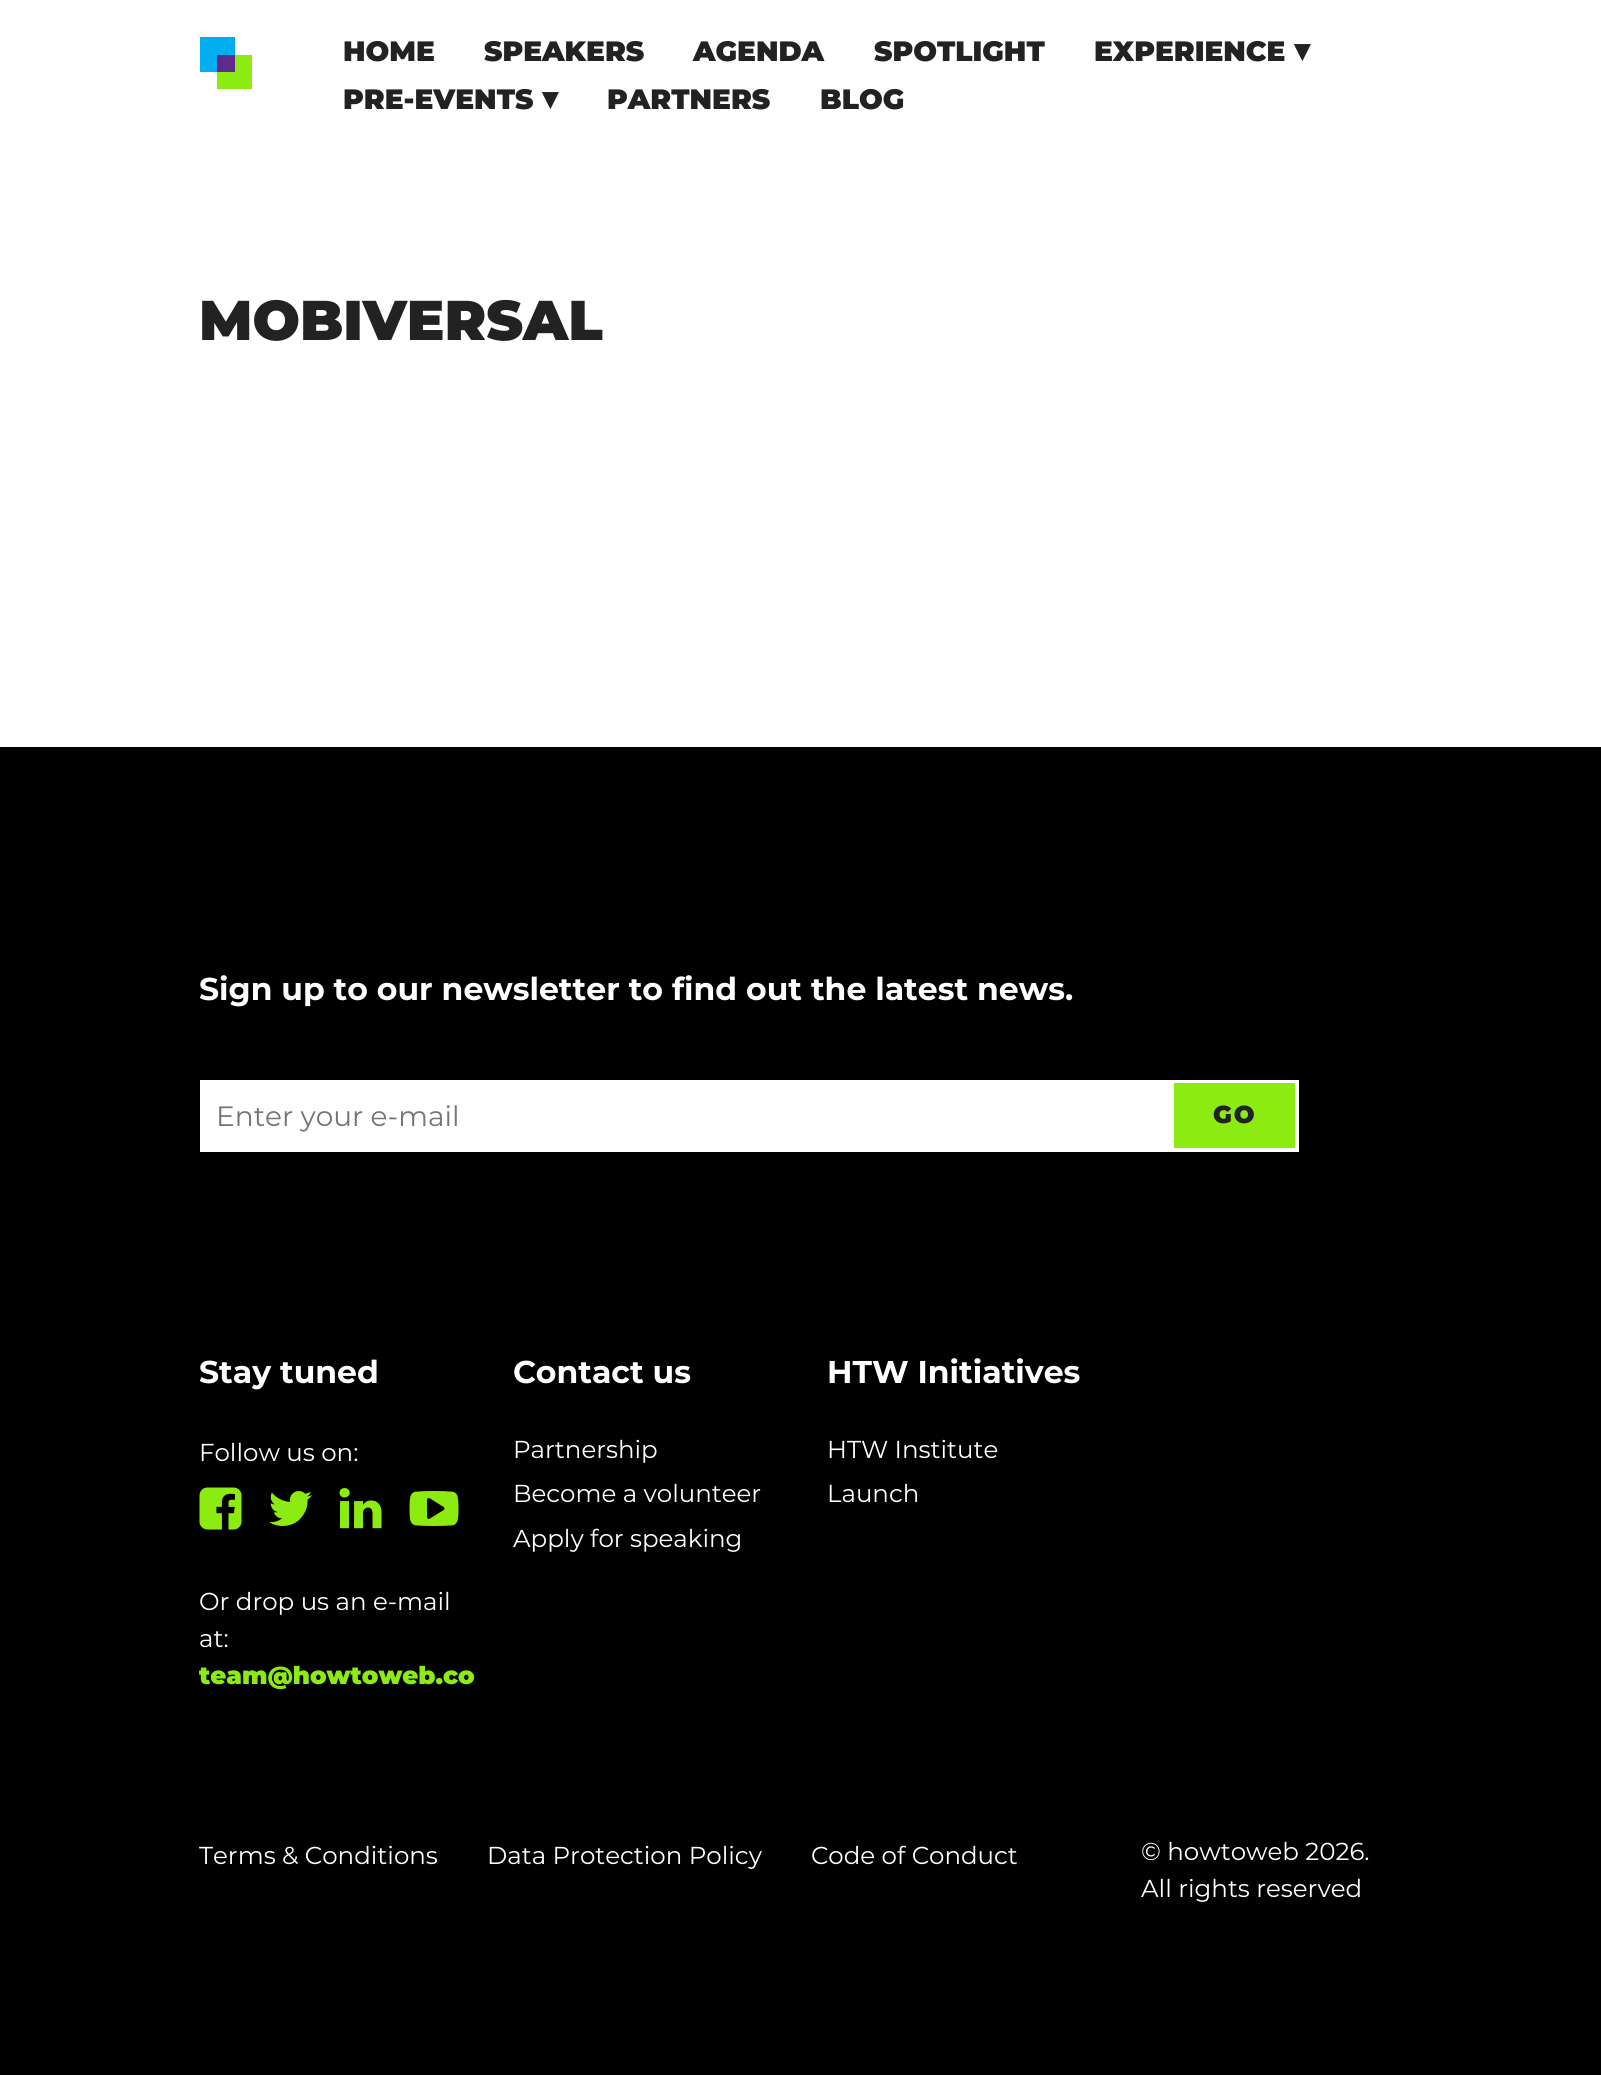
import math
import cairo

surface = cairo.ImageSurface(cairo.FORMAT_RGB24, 1601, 2075)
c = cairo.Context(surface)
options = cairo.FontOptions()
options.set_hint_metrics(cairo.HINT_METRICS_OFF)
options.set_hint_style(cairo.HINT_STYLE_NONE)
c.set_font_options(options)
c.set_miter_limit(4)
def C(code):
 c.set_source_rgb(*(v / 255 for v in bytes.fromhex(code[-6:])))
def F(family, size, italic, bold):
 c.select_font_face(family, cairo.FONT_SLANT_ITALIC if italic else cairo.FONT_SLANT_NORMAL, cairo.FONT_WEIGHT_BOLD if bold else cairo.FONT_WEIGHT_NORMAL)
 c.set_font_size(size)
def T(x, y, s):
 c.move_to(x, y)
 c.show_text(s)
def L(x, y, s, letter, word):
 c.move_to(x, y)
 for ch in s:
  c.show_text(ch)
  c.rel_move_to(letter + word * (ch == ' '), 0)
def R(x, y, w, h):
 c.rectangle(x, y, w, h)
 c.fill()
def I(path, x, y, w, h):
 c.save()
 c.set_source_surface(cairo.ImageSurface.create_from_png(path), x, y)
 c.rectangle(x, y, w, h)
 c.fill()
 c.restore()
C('ffffff')
c.paint()
C('8ceb10')
R(217,55,35,34)
C('00adee')
R(200,37,35,35)
C('5f298e')
R(217,55,18,17)
F('Montserrat Black',28,0,0)
C('222222')
T(343,61,'HOME')
T(484,61,'SPEAKERS')
T(693,61,'AGENDA')
T(874,61,'SPOTLIGHT')
T(1094,61,'EXPERIENCE')
F('DejaVu Sans',31.5,0,1)
T(1294,61,'▾')
F('Montserrat Black',28,0,0)
T(343,109,'PRE-EVENTS')
F('DejaVu Sans',31.5,0,1)
T(542,109,'▾')
F('Montserrat Black',28,0,0)
T(607,109,'PARTNERS')
T(820,109,'BLOG')
F('Montserrat Black',56,0,0)
T(199,340,'MOBIVERSAL')
C('000000')
R(0,747,1601,1328)
F('Montserrat',31.5,0,1)
C('ffffff')
T(199,1000,'Sign up to our newsletter to find out the latest news.')
c.rectangle(202,1082,1095,68)
c.set_line_width(4)
c.stroke()
R(204,1084,970,64)
F('Montserrat',28,0,0)
C('757575')
T(216,1126,'Enter your e-mail')
C('8ceb10')
R(1174,1083,121,65)
F('Montserrat Black',24.5,0,0)
C('222222')
L(1213,1123,'GO',2,0)
F('Montserrat',31.5,0,1)
C('ffffff')
T(199,1383,'Stay tuned')
F('Montserrat',24.5,0,0)
T(199,1461,'Follow us on:')
I('1.png',199,1487,43,43)
I('2.png',269,1491,43,35)
I('3.png',339,1488,43,41)
I('4.png',409,1491,50,35)
T(199,1610,'Or drop us an e-mail')
T(199,1647,'at:')
F('Montserrat Black',24.5,0,0)
C('8ceb10')
T(199,1684,'team@howtoweb.co')
F('Montserrat',31.5,0,1)
C('ffffff')
T(513,1383,'Contact us')
F('Montserrat',24.5,0,0)
T(513,1458,'Partnership')
T(513,1502,'Become a volunteer')
T(513,1547,'Apply for speaking')
F('Montserrat',31.5,0,1)
T(827,1383,'HTW Initiatives')
F('Montserrat',24.5,0,0)
T(827,1458,'HTW Institute')
T(827,1502,'Launch')
T(199,1864,'Terms & Conditions')
T(487,1864,'Data Protection Policy')
T(811,1864,'Code of Conduct')
T(1141,1860,'© howtoweb 2026.')
T(1141,1897,'All rights reserved')
surface.write_to_png('o.png')
